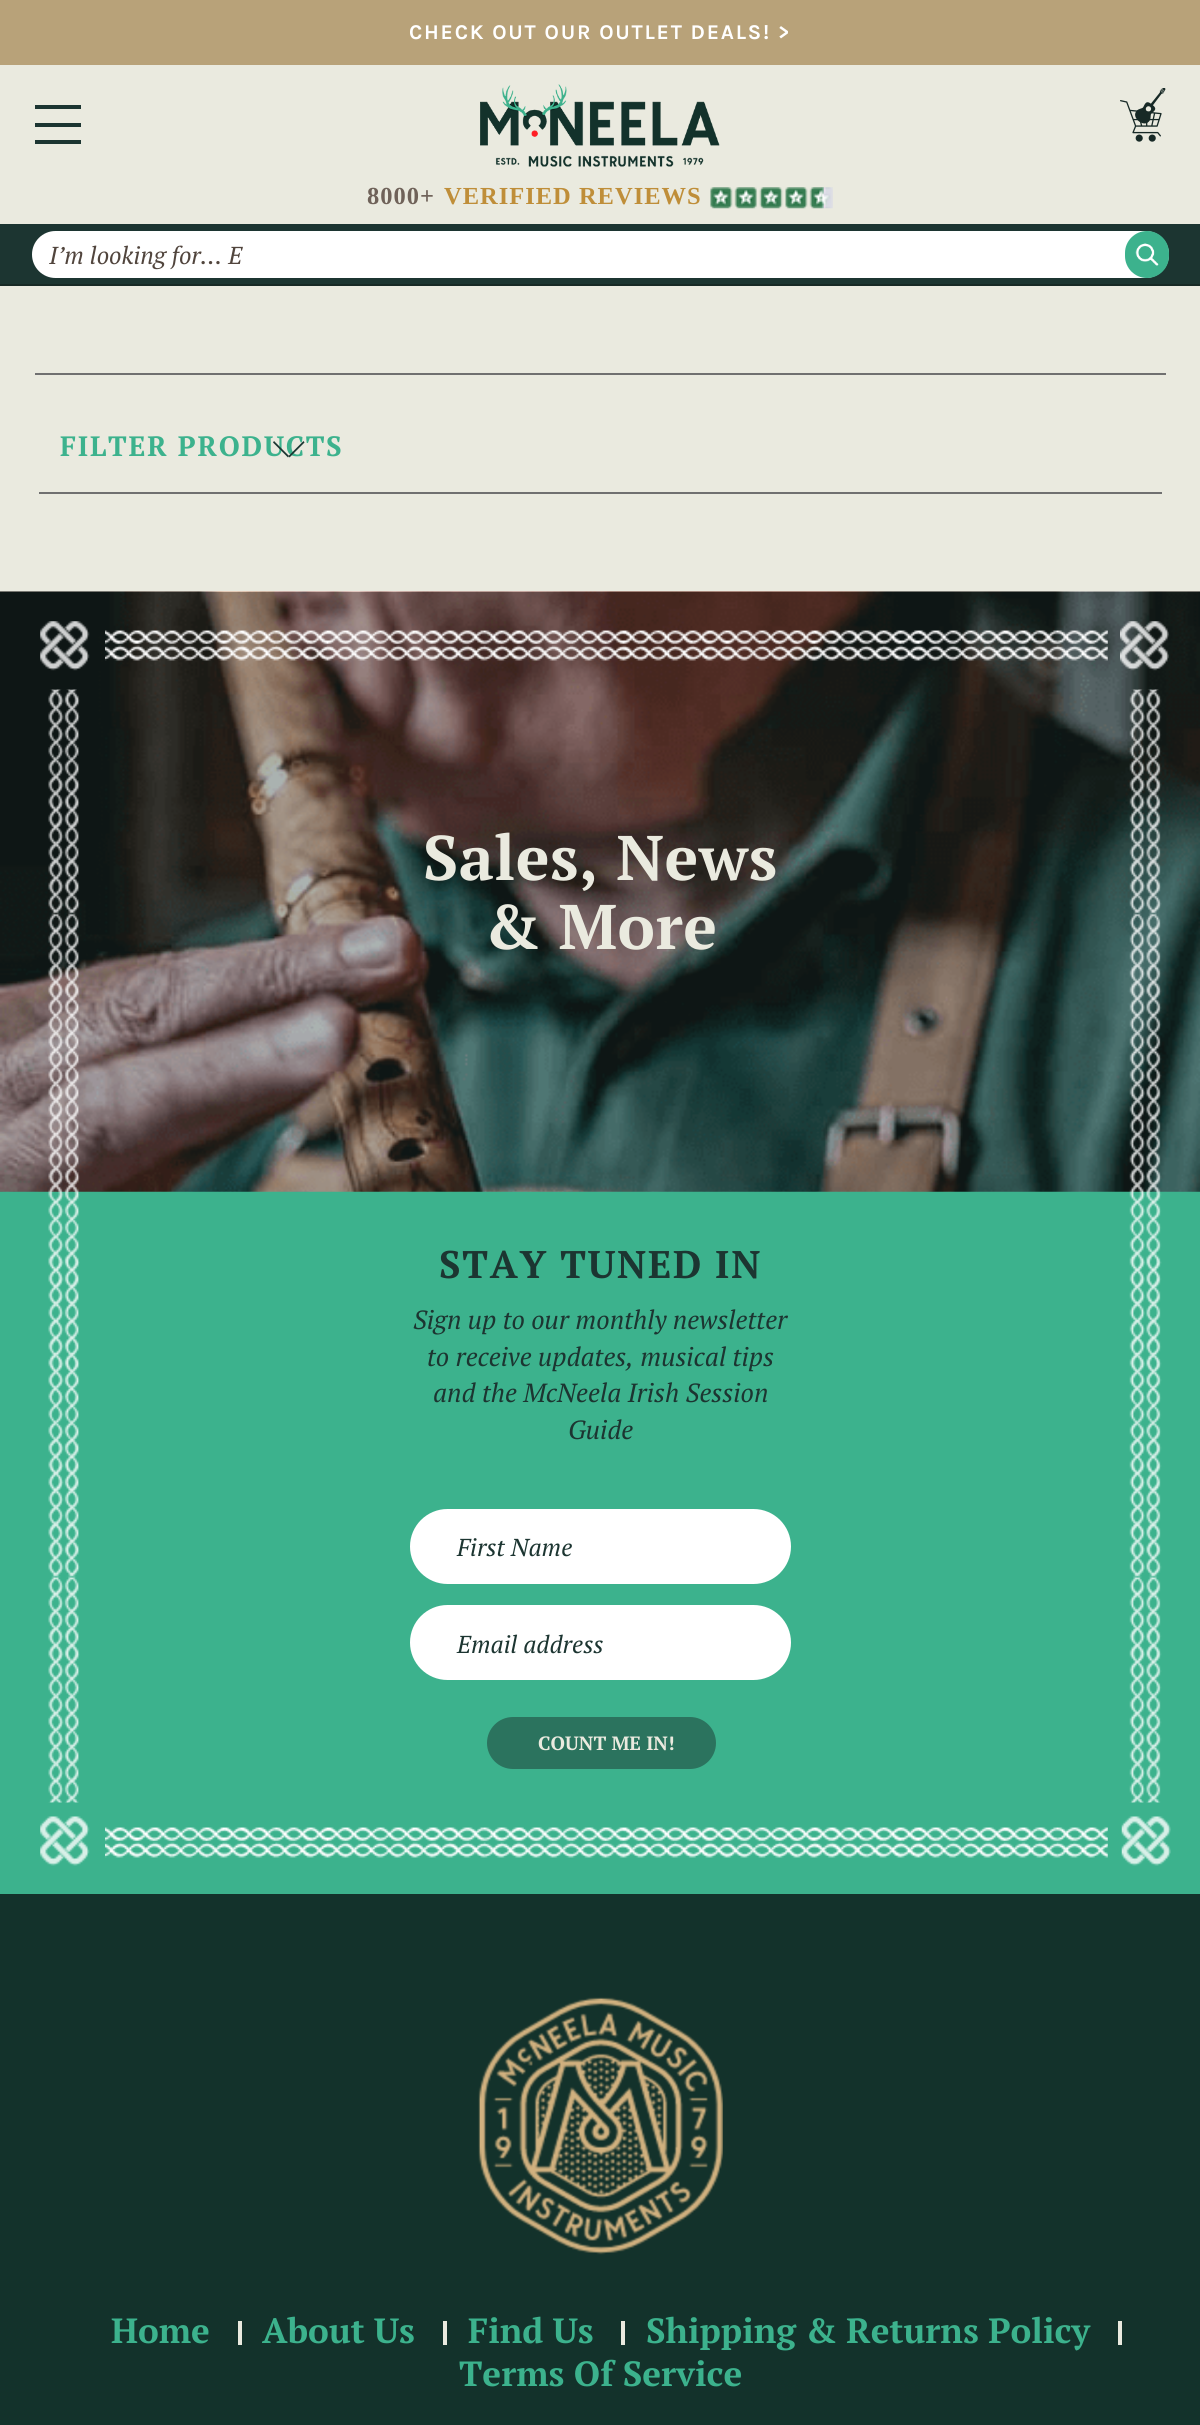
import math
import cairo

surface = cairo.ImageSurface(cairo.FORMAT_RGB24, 1200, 2425)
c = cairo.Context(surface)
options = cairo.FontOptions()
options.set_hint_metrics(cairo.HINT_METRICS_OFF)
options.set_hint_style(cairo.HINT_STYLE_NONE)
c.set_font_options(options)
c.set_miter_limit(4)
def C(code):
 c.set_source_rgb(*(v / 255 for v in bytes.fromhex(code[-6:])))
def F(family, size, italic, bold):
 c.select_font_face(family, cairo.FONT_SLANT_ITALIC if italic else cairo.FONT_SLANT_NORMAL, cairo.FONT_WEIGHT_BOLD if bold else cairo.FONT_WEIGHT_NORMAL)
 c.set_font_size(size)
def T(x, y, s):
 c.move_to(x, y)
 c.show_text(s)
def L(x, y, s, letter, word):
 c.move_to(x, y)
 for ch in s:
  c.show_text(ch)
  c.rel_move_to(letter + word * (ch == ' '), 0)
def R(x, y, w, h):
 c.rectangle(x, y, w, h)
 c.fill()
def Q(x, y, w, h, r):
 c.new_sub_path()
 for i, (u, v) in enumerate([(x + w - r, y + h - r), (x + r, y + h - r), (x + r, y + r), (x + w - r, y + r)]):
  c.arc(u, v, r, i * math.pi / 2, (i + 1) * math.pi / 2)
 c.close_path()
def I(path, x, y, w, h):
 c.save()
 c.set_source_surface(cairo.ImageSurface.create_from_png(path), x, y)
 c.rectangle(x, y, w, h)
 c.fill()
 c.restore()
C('eaeadf')
c.paint()
C('b8a279')
R(0,0,1200,65)
F('Karla',21,0,1)
C('ffffff')
L(409,39,'CHECK OUT OUR OUTLET DEALS!',1.75,0)
L(778,39,'>',1.75,0)
C('172925')
R(0,284,1200,2)
C('1c3531')
R(35,105,46,4)
R(35,123,46,4)
R(35,140,46,4)
I('1.png',480,84,240,83)
I('2.png',1120,88,46,54)
F('Liberation Serif',24.5,0,1)
C('6f6259')
L(367,204,'8000+',1,0)
C('bf8e39')
L(444,204,'VERIFIED REVIEWS',1,0)
I('3.png',710,187,123,22)
C('1c3531')
R(0,224,1200,60)
C('ffffff')
Q(32,231,1137,47,23.5)
c.fill()
F('PT Serif',24.5,1,0)
C('51453d')
T(49,264,'I’m looking for… E')
C('3cb28d')
Q(1125,231,44,47,22)
c.fill()
I('4.png',1135,243,24,23)
C('707070')
R(35,373,1131,2)
R(39,492,1123,2)
F('PT Serif',28,0,1)
C('3cb28d')
L(60,456,'FILTER PRODUCTS',1.75,0)
C('1c3531')
c.new_path()
c.move_to(274,441)
c.line_to(289,456)
c.line_to(288,457.5)
c.line_to(273,442.5)
c.close_path()
c.fill()
c.new_path()
c.move_to(288.5,456)
c.line_to(303.5,441)
c.line_to(304.5,442.5)
c.line_to(289.5,457.5)
c.close_path()
c.fill()
C('3cb28d')
R(0,1191,1200,703)
I('13.png',0,591,1200,601)
I('5.png',40,621,50,50)
I('6.png',40,1816,50,50)
I('7.png',105,630,1003,31)
I('8.png',105,1827,1003,31)
I('9.png',1120,621,49,50)
I('10.png',1121,1816,50,50)
I('11.png',48,689,32,1114)
I('12.png',1129,689,33,1114)
F('PT Serif',63,0,1)
C('eaeadf')
L(423,880,'Sales, News',.5,0)
L(484,949,'& More',.5,0)
F('PT Serif',38.5,0,1)
C('1c3531')
L(439,1278,'STAY TUNED IN',1.75,0)
F('PT Serif',26.25,1,0)
T(413,1329,'Sign up to our monthly newsletter')
T(427,1366,'to receive updates, musical tips')
T(433,1402,'and the McNeela Irish Session')
T(568,1439,'Guide')
C('ffffff')
Q(410,1509,381,75,37.5)
c.fill()
F('PT Serif',24.5,1,0)
C('1c3531')
T(457,1556,'First Name')
C('ffffff')
Q(410,1605,381,75,37.5)
c.fill()
C('1c3531')
T(457,1653,'Email address')
C('2b735e')
Q(487,1717,229,52,26)
c.fill()
F('PT Serif',19.25,0,1)
C('eaeadf')
T(538,1750,'COUNT ME IN!')
C('13322b')
R(0,1894,1200,531)
I('14.png',478,1997,245,258)
F('PT Serif',35,0,1)
C('3cb28d')
T(111,2343,'Home')
C('eaeadf')
R(238,2321,4,24)
C('3cb28d')
T(262,2343,'About Us')
C('eaeadf')
R(443,2321,4,24)
C('3cb28d')
T(468,2343,'Find Us')
C('eaeadf')
R(621,2321,4,24)
C('3cb28d')
T(646,2343,'Shipping & Returns Policy')
C('eaeadf')
R(1118,2321,4,24)
C('3cb28d')
T(459,2386,'Terms Of Service')
surface.write_to_png('o.png')
